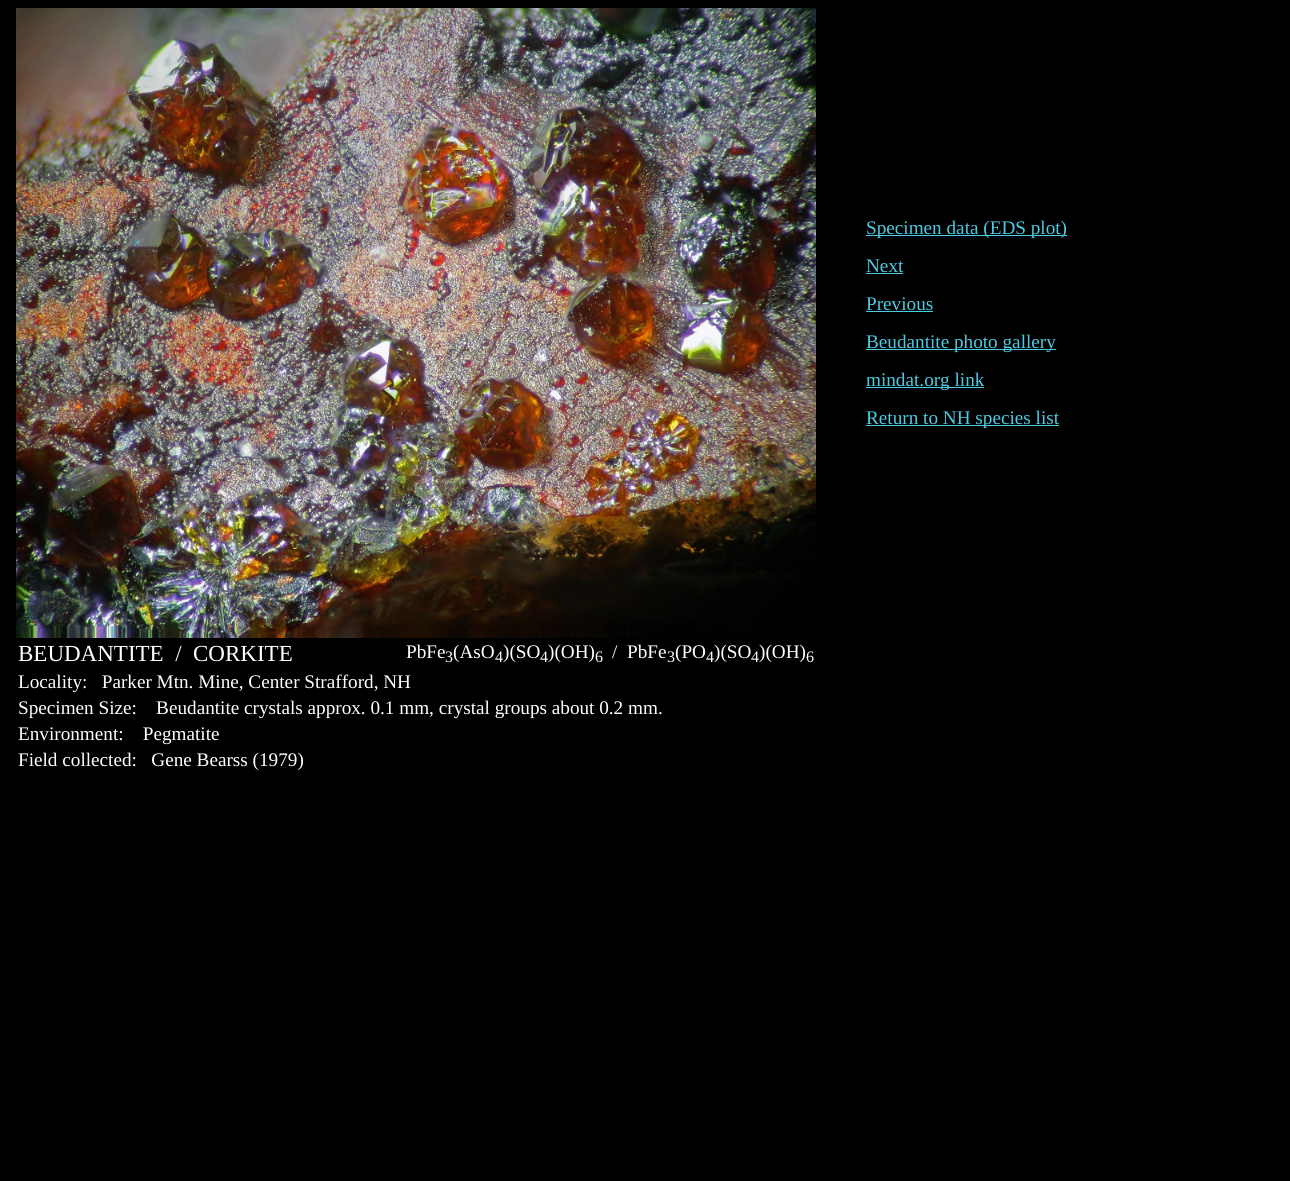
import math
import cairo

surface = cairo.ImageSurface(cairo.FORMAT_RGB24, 1290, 1181)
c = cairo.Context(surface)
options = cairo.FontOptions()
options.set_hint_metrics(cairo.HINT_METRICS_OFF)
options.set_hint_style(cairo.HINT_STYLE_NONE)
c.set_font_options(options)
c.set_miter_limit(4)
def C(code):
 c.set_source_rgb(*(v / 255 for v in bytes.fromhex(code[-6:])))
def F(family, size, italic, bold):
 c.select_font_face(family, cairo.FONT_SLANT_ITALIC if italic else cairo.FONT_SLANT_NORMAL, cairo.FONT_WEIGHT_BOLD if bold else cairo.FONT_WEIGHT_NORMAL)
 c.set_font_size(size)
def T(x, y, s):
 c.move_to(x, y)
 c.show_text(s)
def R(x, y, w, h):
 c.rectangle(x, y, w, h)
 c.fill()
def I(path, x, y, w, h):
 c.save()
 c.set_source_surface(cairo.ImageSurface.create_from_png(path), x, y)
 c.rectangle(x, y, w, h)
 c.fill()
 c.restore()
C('000000')
c.paint()
I('1.png',16,8,800,630)
C('4ecbe2')
R(866,235,201,1)
F('Liberation Serif',19.2,0,0)
T(866,234,'Specimen data (EDS plot)')
T(866,272,'Next')
R(866,273,37,1)
T(866,310,'Previous')
R(866,311,67,1)
R(866,349,190,1)
T(866,348,'Beudantite photo gallery')
R(866,387,118,1)
T(866,386,'mindat.org link')
R(866,425,193,1)
T(866,424,'Return to NH species list')
F('Liberation Serif',23,0,0)
C('ffffff')
T(18,661,'BEUDANTITE  /  CORKITE')
F('Liberation Serif',19.2,0,0)
T(406,658,'PbFe')
F('Liberation Serif',16,0,0)
T(445,662,'3')
F('Liberation Serif',19.2,0,0)
T(453,658,'(AsO')
F('Liberation Serif',16,0,0)
T(495,662,'4')
F('Liberation Serif',19.2,0,0)
T(503,658,')(SO')
F('Liberation Serif',16,0,0)
T(540,662,'4')
F('Liberation Serif',19.2,0,0)
T(548,658,')(OH)')
F('Liberation Serif',16,0,0)
T(595,662,'6')
F('Liberation Serif',19.2,0,0)
T(612,658,'/')
T(627,658,'PbFe')
F('Liberation Serif',16,0,0)
T(667,662,'3')
F('Liberation Serif',19.2,0,0)
T(675,658,'(PO')
F('Liberation Serif',16,0,0)
T(706,662,'4')
F('Liberation Serif',19.2,0,0)
T(714,658,')(SO')
F('Liberation Serif',16,0,0)
T(751,662,'4')
F('Liberation Serif',19.2,0,0)
T(759,658,')(OH)')
F('Liberation Serif',16,0,0)
T(806,662,'6')
F('Liberation Serif',19.2,0,0)
T(18,688,'Locality:   Parker Mtn. Mine, Center Strafford, NH')
T(18,714,'Specimen Size:    Beudantite crystals approx. 0.1 mm, crystal groups about 0.2 mm.')
T(18,740,'Environment:    Pegmatite')
T(18,766,'Field collected:   Gene Bearss (1979)')
surface.write_to_png('o.png')
